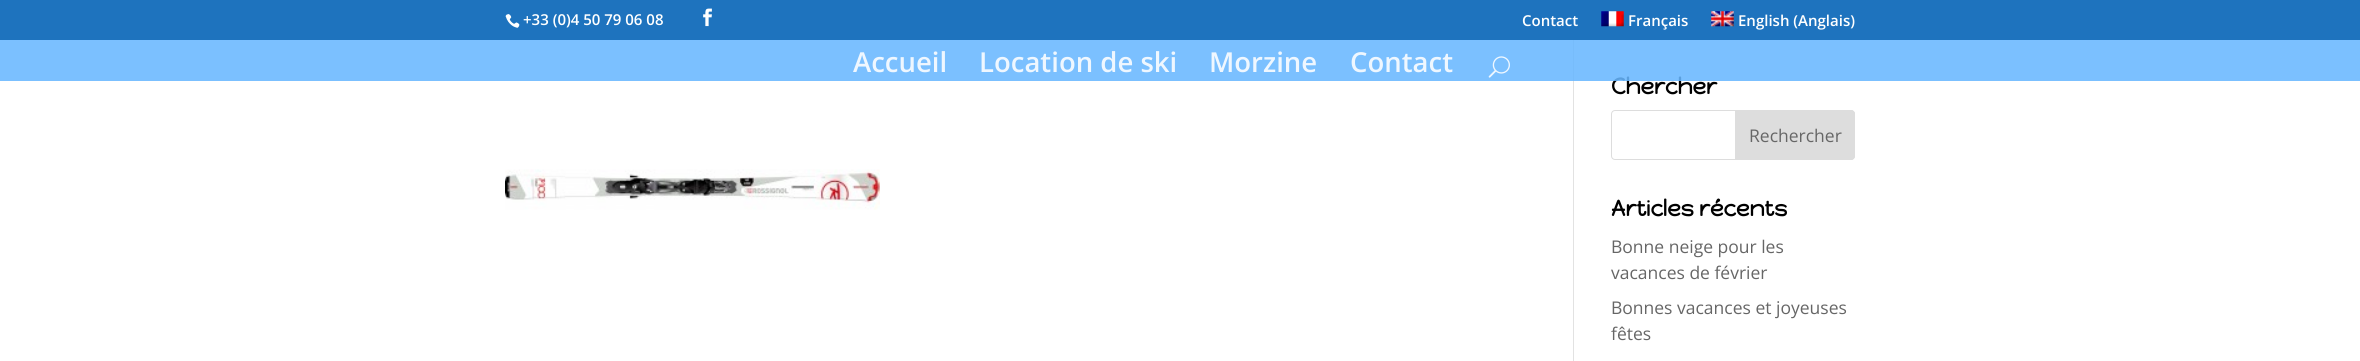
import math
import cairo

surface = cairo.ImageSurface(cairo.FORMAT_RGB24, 2360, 361)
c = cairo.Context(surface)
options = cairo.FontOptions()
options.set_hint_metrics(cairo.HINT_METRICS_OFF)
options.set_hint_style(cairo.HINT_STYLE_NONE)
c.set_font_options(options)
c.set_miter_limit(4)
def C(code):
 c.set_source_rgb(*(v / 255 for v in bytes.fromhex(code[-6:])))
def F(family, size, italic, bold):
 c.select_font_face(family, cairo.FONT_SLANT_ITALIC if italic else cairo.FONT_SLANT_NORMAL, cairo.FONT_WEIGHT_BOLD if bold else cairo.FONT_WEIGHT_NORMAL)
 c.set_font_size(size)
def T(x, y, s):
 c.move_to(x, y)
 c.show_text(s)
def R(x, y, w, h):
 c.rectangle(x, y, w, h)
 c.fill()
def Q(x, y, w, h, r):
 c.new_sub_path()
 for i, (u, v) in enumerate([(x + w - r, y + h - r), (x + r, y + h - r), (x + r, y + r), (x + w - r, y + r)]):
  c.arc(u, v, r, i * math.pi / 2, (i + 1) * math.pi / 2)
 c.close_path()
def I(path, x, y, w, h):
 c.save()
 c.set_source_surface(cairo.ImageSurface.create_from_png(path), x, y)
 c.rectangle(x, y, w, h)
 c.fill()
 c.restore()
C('ffffff')
c.paint()
C('1e73be')
R(0,0,2360,40)
I('1.png',505,14,15,14)
F('Open Sans SemiBold',15,0,0)
C('ffffff')
T(523,25,'+33 (0)4 50 79 06 08')
I('2.png',703,8,9,19)
T(1522,26,'Contact')
I('3.png',1601,11,23,16)
T(1628,26,'Français')
I('4.png',1711,11,23,16)
T(1738,26,'English (Anglais)')
C('e2e2e2')
R(1573,40,1,321)
F('Happy Monkey',22.5,0,1)
C('000000')
T(1611,94,'Chercher')
c.set_source_rgba(0.408,0.714,1,0.87)
R(0,40,2360,41)
F('Open Sans SemiBold',27.5,0,0)
C('eff7ff')
T(853,72,'Accueil')
T(979,72,'Location de ski')
T(1209,72,'Morzine')
T(1350,72,'Contact')
I('5.png',1488,56,22,22)
I('6.png',505,169,375,41)
Q(1611.5,110.5,243,49,3.5)
C('dddddd')
c.set_line_width(1)
c.stroke()
c.new_path()
c.move_to(1735.5,110.5)
c.line_to(1851,110.5)
c.curve_to(1853,110.5,1854.5,112,1854.5,114)
c.line_to(1854.5,156)
c.curve_to(1854.5,158,1853,159.5,1851,159.5)
c.line_to(1735.5,159.5)
c.close_path()
c.fill_preserve()
c.stroke()
F('Open Sans',17.5,0,0)
C('666666')
T(1749,142,'Rechercher')
F('Happy Monkey',22.5,0,1)
C('000000')
T(1611,216,'Articles récents')
F('Open Sans',17.5,0,0)
C('666666')
T(1611,253,'Bonne neige pour les')
T(1611,279,'vacances de février')
T(1611,314,'Bonnes vacances et joyeuses')
T(1611,340,'fêtes')
surface.write_to_png('o.png')
